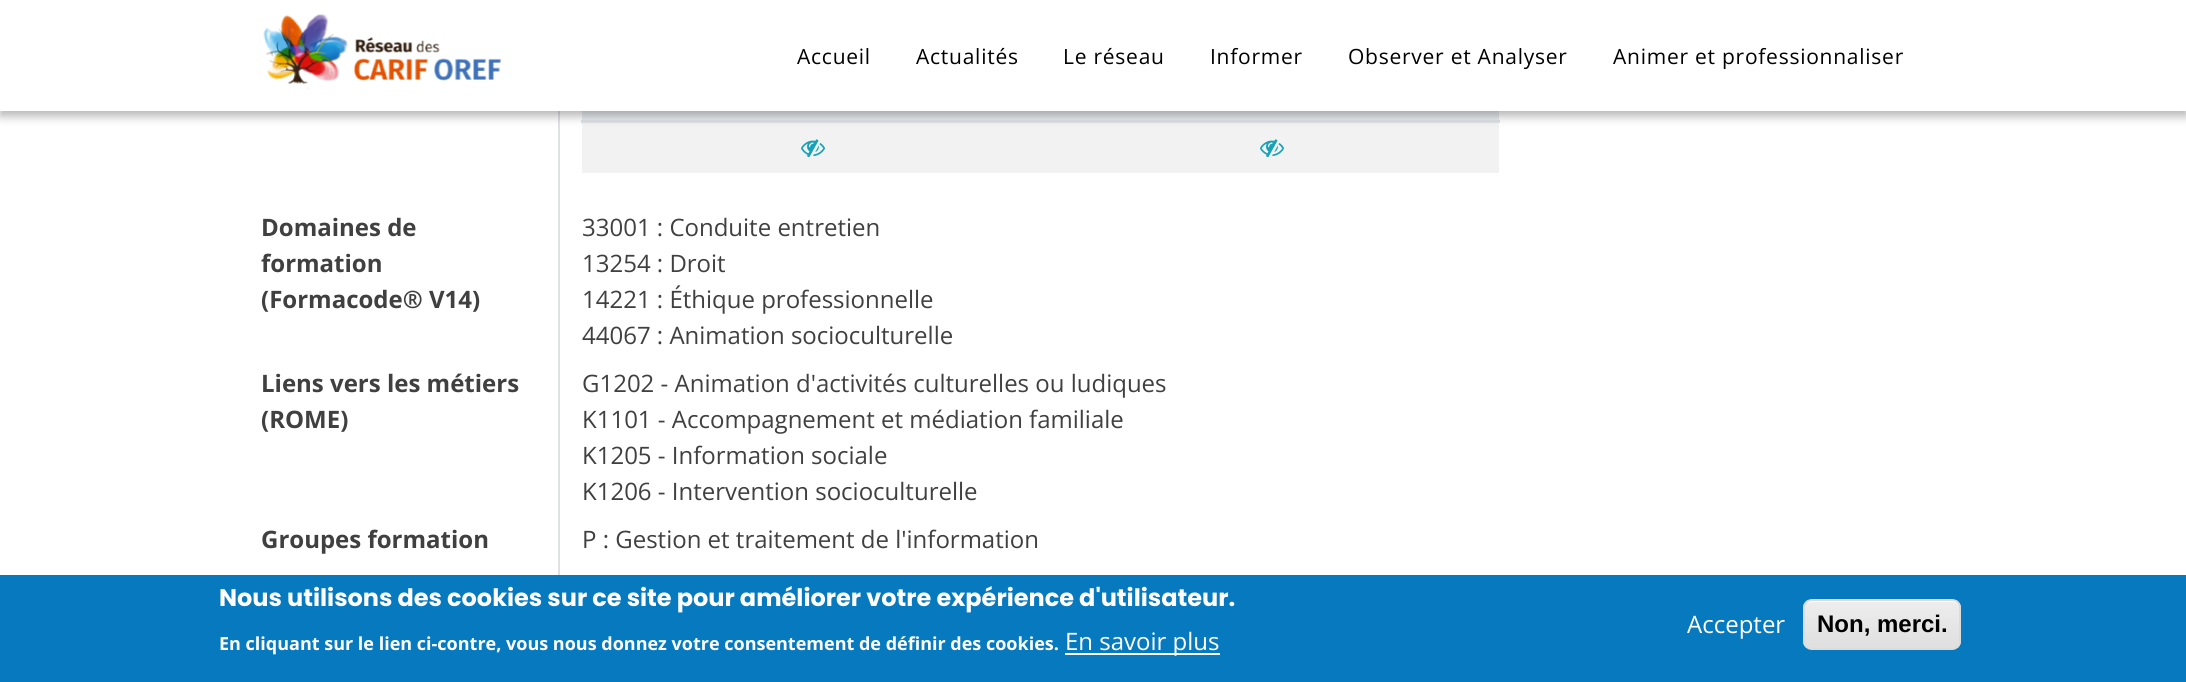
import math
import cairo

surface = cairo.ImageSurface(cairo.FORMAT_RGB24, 2186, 682)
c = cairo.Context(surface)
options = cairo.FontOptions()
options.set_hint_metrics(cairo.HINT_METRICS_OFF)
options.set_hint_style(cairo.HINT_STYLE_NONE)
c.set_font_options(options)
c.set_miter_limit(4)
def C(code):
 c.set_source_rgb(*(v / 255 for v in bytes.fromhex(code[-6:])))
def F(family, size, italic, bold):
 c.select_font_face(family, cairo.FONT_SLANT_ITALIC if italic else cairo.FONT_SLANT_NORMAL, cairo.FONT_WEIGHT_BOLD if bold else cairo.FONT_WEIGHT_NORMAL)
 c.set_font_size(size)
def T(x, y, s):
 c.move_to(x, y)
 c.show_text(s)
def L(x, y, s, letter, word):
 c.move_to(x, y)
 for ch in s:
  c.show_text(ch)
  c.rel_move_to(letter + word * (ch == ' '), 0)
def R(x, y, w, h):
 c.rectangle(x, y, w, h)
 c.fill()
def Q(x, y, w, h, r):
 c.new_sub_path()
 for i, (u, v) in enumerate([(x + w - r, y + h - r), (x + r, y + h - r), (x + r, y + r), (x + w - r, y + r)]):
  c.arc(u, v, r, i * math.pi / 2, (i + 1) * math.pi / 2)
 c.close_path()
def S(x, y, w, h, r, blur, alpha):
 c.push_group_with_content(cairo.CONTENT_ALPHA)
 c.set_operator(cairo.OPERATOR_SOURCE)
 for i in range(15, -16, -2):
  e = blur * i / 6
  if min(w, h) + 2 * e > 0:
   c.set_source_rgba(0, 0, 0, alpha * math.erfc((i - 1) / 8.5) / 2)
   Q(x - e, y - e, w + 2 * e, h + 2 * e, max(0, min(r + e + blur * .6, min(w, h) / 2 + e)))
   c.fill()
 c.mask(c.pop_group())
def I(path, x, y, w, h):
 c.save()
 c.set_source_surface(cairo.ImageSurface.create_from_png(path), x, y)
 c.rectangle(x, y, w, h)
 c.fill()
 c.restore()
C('ffffff')
c.paint()
C('dee2e6')
R(558,111,2,464)
C('e9ecef')
R(582,111,917,9)
C('dee2e6')
R(581,120,919,3)
C('f2f2f2')
R(582,123,917,50)
C('000000')
S(0,5,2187,111,0,5,.3)
C('ffffff')
R(0,0,2186,111)
I('1.png',263,14,239,75)
F('Open Sans',21,0,0)
C('000000')
L(797,64,'Accueil',.75,0)
L(916,64,'Actualités',.75,0)
L(1063,64,'Le réseau',.75,0)
L(1210,64,'Informer',.75,0)
L(1348,64,'Observer et Analyser',.75,0)
L(1613,64,'Animer et professionnaliser',.75,0)
I('2.png',801,139,24,19)
I('2.png',1260,139,24,19)
F('Open Sans',24,0,1)
C('404040')
T(261,236,'Domaines de')
T(261,272,'formation')
T(261,308,'(Formacode® V14)')
F('Open Sans',24,0,0)
T(582,236,'33001 : Conduite entretien')
T(582,272,'13254 : Droit')
T(582,308,'14221 : Éthique professionnelle')
T(582,344,'44067 : Animation socioculturelle')
F('Open Sans',24,0,1)
T(261,392,'Liens vers les métiers')
T(261,428,'(ROME)')
F('Open Sans',24,0,0)
T(582,392,'G1202 - Animation d\'activités culturelles ou ludiques')
T(582,428,'K1101 - Accompagnement et médiation familiale')
T(582,464,'K1205 - Information sociale')
T(582,500,'K1206 - Intervention socioculturelle')
F('Open Sans',24,0,1)
T(261,548,'Groupes formation')
F('Open Sans',24,0,0)
T(582,548,'P : Gestion et traitement de l\'information')
C('0779bf')
R(0,575,2186,107)
F('Poppins',24,0,1)
C('ffffff')
T(219,606,'Nous utilisons des cookies sur ce site pour améliorer votre expérience d\'utilisateur.')
F('Open Sans',18,0,1)
T(219,650,'En cliquant sur le lien ci-contre, vous nous donnez votre consentement de définir des cookies.')
R(1065,653,155,2)
F('Open Sans',24,0,0)
T(1065,650,'En savoir plus')
T(1687,633,'Accepter')
c.save()
Q(1803,599,158,51,9)
c.clip()
gradient = cairo.LinearGradient(1882,600,1882,648)
gradient.add_color_stop_rgba(.05,0.929,0.929,0.929,1)
gradient.add_color_stop_rgba(1,0.875,0.875,0.875,1)
c.set_source(gradient)
R(1803,600,158,48)
c.restore()
c.new_path()
c.move_to(1812,602)
c.line_to(1952,602)
c.curve_to(1956,602,1959,605,1959,609)
c.line_to(1959,608)
c.curve_to(1959,604,1955,600,1951,600)
c.line_to(1813,600)
c.curve_to(1810,600,1807,602,1806,605)
c.curve_to(1807,603,1810,602,1812,602)
c.close_path()
c.fill()
Q(1804,600,156,49,8)
C('dcdcdc')
c.stroke()
F('Liberation Sans',24,0,1)
C('000000')
T(1817,632,'Non, merci.')
surface.write_to_png('o.png')
